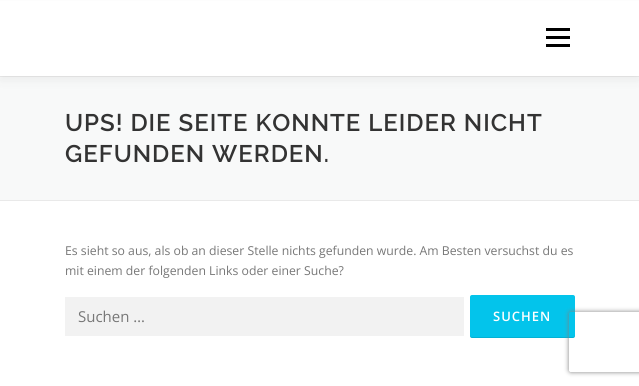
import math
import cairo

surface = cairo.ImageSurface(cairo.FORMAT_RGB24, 639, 386)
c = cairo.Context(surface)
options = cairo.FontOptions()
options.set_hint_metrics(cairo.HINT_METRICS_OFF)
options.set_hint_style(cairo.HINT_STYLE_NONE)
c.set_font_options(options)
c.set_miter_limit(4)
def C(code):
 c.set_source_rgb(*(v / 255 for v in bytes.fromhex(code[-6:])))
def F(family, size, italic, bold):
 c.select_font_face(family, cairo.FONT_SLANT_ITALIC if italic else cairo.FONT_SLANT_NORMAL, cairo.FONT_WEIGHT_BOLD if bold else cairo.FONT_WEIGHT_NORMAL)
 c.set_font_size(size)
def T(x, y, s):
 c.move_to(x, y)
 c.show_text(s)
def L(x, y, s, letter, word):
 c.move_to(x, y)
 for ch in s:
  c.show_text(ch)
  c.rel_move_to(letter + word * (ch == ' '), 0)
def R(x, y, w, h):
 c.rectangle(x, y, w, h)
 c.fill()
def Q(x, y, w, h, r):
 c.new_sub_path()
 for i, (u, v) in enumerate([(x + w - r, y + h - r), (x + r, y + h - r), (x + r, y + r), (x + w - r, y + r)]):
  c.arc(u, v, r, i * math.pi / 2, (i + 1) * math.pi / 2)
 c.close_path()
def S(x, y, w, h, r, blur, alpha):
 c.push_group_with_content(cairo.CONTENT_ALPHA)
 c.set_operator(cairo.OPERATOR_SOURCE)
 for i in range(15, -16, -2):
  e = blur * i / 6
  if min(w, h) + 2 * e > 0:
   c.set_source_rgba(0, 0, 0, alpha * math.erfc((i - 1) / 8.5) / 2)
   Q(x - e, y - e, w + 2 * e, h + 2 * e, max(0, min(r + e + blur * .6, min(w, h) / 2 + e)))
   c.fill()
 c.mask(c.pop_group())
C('ffffff')
c.paint()
C('f8f9f9')
R(0,77,639,123)
C('e9e9e9')
R(0,76,639,1)
C('323232')
S(0,5,639,76,0,5,.06)
C('ffffff')
R(0,1,639,75)
C('000000')
R(546,36,24,3)
R(546,28,24,3)
R(546,44,24,3)
C('e9e9e9')
R(0,200,639,1)
F('Raleway SemiBold',24,0,0)
C('333333')
L(65,131,'UPS! DIE SEITE KONNTE LEIDER NICHT',1,0)
L(65,162,'GEFUNDEN WERDEN.',1,0)
F('Open Sans',12.25,0,0)
C('777777')
T(65,255,'Es sieht so aus, als ob an dieser Stelle nichts gefunden wurde. Am Besten versuchst du es')
T(65,275,'mit einem der folgenden Links oder einer Suche?')
C('f2f2f2')
R(65,297,399,39)
F('Open Sans',15,0,0)
C('777777')
T(78,322,'Suchen …')
C('03c4eb')
Q(470,295,105,43,2)
c.fill()
c.set_source_rgba(0,0,0,0.1)
c.new_path()
c.move_to(470,335)
c.curve_to(470,336,470,338,472,338)
c.line_to(573,338)
c.curve_to(575,338,575,336,575,335)
c.curve_to(575,336,574,337,573,337)
c.line_to(472,337)
c.curve_to(471,337,470,336,470,335)
c.close_path()
c.fill()
F('Open Sans SemiBold',13,0,0)
C('ffffff')
L(493,321,'SUCHEN',1,0)
c.save()
c.set_fill_rule(cairo.FILL_RULE_EVEN_ODD)
c.new_path()
c.move_to(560,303)
c.line_to(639,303)
c.line_to(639,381)
c.line_to(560,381)
c.close_path()
c.move_to(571,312)
c.line_to(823,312)
c.curve_to(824,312,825,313,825,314)
c.line_to(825,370)
c.curve_to(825,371,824,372,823,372)
c.line_to(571,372)
c.curve_to(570,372,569,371,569,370)
c.line_to(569,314)
c.curve_to(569,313,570,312,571,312)
c.close_path()
c.clip()
C('808080')
S(569,312,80,60,2,2.5,1)
c.restore()
surface.write_to_png('o.png')
